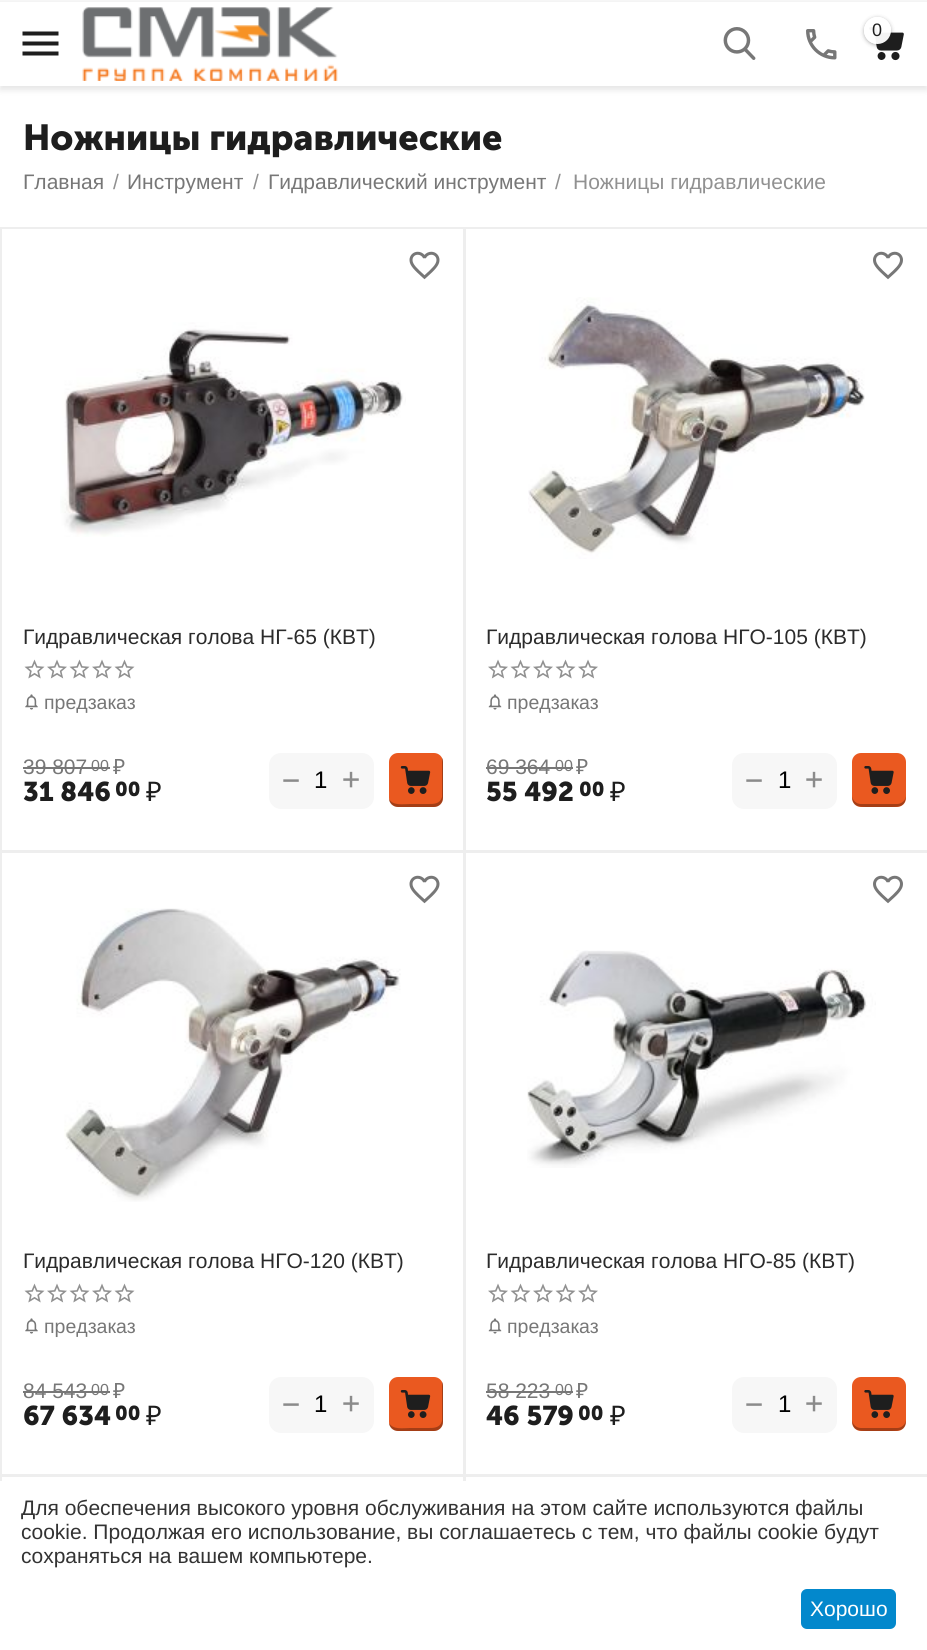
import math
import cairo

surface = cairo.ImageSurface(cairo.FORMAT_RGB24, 927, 1650)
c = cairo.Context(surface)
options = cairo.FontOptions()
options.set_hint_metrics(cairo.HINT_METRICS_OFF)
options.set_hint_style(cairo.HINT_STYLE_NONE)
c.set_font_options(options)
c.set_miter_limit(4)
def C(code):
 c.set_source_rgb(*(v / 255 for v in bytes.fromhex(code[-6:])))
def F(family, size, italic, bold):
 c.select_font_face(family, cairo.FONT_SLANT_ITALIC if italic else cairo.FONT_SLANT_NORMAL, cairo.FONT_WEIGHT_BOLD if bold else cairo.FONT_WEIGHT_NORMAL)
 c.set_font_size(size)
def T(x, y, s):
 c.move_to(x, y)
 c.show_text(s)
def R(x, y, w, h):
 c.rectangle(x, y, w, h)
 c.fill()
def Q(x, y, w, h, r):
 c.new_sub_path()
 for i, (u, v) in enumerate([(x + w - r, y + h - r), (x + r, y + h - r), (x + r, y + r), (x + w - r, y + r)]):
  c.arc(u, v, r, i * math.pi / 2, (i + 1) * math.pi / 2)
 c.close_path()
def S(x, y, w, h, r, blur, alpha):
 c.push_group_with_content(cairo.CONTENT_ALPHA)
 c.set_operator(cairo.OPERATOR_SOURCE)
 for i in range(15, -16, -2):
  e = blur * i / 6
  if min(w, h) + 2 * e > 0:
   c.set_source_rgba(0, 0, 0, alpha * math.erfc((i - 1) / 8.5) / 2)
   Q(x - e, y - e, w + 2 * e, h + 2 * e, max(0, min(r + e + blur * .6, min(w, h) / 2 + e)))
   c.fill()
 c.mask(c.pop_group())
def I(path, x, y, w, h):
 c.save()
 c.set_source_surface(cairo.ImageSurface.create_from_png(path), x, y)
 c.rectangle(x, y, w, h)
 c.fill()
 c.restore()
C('ffffff')
c.paint()
C('f6f6f6')
R(0,0,927,2)
c.save()
c.set_fill_rule(cairo.FILL_RULE_EVEN_ODD)
c.new_path()
c.move_to(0,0)
c.line_to(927,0)
c.line_to(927,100)
c.line_to(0,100)
c.close_path()
c.move_to(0,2)
c.line_to(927,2)
c.line_to(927,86)
c.line_to(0,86)
c.close_path()
c.clip()
C('000000')
S(0,6,927,84,0,3,.1)
c.restore()
C('ffffff')
R(23,85,882,1)
C('1e1e1e')
c.new_path()
c.move_to(22.5,55.5)
c.line_to(58.5,55.5)
c.line_to(58.5,51.5)
c.line_to(22.5,51.5)
c.close_path()
c.move_to(22.5,45.5)
c.line_to(58.5,45.5)
c.line_to(58.5,41.5)
c.line_to(22.5,41.5)
c.close_path()
c.move_to(22.5,31.5)
c.line_to(22.5,35.5)
c.line_to(58.5,35.5)
c.line_to(58.5,31.5)
c.close_path()
c.fill()
I('1.png',82,7,256,74)
I('2.png',723,27,33,33)
I('3.png',806,29,31,31)
I('4.png',869,26,35,35)
c.save()
c.set_fill_rule(cairo.FILL_RULE_EVEN_ODD)
c.new_path()
c.move_to(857,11)
c.line_to(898,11)
c.line_to(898,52)
c.line_to(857,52)
c.close_path()
c.move_to(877.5,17)
c.curve_to(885,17,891,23,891,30.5)
c.curve_to(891,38,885,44,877.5,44)
c.curve_to(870,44,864,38,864,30.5)
c.curve_to(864,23,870,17,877.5,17)
c.close_path()
c.clip()
C('1e1e1e')
S(864,18,27,27,13.5,2,.35)
c.restore()
c.set_source_rgba(1,1,1,0.95)
c.arc(877.5,30.5,13.5,0,2 * math.pi)
c.fill()
F('Liberation Sans',18,0,0)
C('1e1e1e')
T(872,36,'0')
F('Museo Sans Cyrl',36,0,1)
T(23,150,'Ножницы гидравлические')
F('Liberation Sans',21,0,0)
C('777777')
T(23,189,'Главная')
C('919191')
T(113,189,'/')
C('777777')
T(127,189,'Инструмент')
C('919191')
T(253,189,'/')
C('777777')
T(268,189,'Гидравлический инструмент')
C('919191')
T(555,189,'/')
T(573,189,'Ножницы гидравлические')
c.rectangle(1,228,463,623)
C('eeeeee')
c.stroke()
I('5.png',409,251,31,29)
I('6.png',60,322,346,215)
C('2b2b2b')
T(23,644,'Гидравлическая голова НГ-65 (КВТ)')
I('7.png',24,659,21,20)
I('8.png',47,659,20,20)
I('7.png',69,659,21,20)
I('8.png',92,659,20,20)
I('7.png',114,659,21,20)
I('9.png',25,694,13,16)
F('Liberation Sans',19.5,0,0)
C('777777')
T(44,709,'предзаказ')
F('Liberation Sans',21,0,0)
T(23,774,'39 807')
F('Liberation Sans',16,0,0)
T(91,771,'00')
R(23,767,87,2)
F('Noto Sans',21,0,0)
T(113,774,'₽')
F('Museo Sans Cyrl',27,0,1)
C('1e1e1e')
T(23,801,'31 846')
F('Museo Sans Cyrl',20,0,1)
T(115,796,'00')
F('Noto Sans',27,0,0)
T(146,801,'₽')
C('f7f7f7')
Q(269,753,105,56,12)
c.fill()
F('DejaVu Sans Mono',30,0,0)
C('8b8b8b')
T(282,790,'−')
F('Liberation Sans',24,0,0)
C('000000')
T(314,788,'1')
F('DejaVu Sans Mono',30,0,0)
C('8b8b8b')
T(342,789,'+')
C('ea5920')
Q(389,753,54,54,9)
c.fill()
c.set_source_rgba(0,0,0,0.3)
c.new_path()
c.move_to(389,799)
c.curve_to(389,803,393,807,398,807)
c.line_to(434,807)
c.curve_to(439,807,443,803,443,798)
c.line_to(443,762)
c.curve_to(443,760,443,759,442,758)
c.line_to(442,797)
c.curve_to(440,804,434,804,428,804)
c.line_to(410,804)
c.curve_to(403,804,393,806,389,799)
c.close_path()
c.fill()
I('10.png',400,766,31,28)
c.rectangle(465,228,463,623)
C('eeeeee')
c.stroke()
I('11.png',873,251,30,29)
I('12.png',528,297,337,262)
F('Liberation Sans',21,0,0)
C('2b2b2b')
T(486,644,'Гидравлическая голова НГО-105 (КВТ)')
I('8.png',488,659,20,20)
I('7.png',510,659,21,20)
I('8.png',533,659,20,20)
I('7.png',555,659,21,20)
I('8.png',578,659,20,20)
I('13.png',488,694,14,16)
F('Liberation Sans',19.5,0,0)
C('777777')
T(507,709,'предзаказ')
F('Liberation Sans',21,0,0)
T(486,774,'69 364')
F('Liberation Sans',16,0,0)
T(555,771,'00')
R(486,767,87,2)
F('Noto Sans',21,0,0)
T(576,774,'₽')
F('Museo Sans Cyrl',27,0,1)
C('1e1e1e')
T(486,801,'55 492')
F('Museo Sans Cyrl',20,0,1)
T(579,796,'00')
F('Noto Sans',27,0,0)
T(610,801,'₽')
C('f7f7f7')
Q(732,753,105,56,12)
c.fill()
F('DejaVu Sans Mono',30,0,0)
C('8b8b8b')
T(745,790,'−')
F('Liberation Sans',24,0,0)
C('000000')
T(778,788,'1')
F('DejaVu Sans Mono',30,0,0)
C('8b8b8b')
T(805,789,'+')
C('ea5920')
Q(852,753,54,54,9)
c.fill()
c.set_source_rgba(0,0,0,0.3)
c.new_path()
c.move_to(852,795)
c.curve_to(852,806,857,807,867,807)
c.line_to(891,807)
c.curve_to(901,807,906,806,906,795)
c.curve_to(906,800,902,804,897,804)
c.line_to(861,804)
c.curve_to(856,804,852,800,852,795)
c.close_path()
c.fill()
I('14.png',864,766,30,28)
c.rectangle(1,852,463,623)
C('eeeeee')
c.stroke()
I('5.png',409,875,31,29)
I('15.png',64,908,337,294)
F('Liberation Sans',21,0,0)
C('2b2b2b')
T(23,1268,'Гидравлическая голова НГО-120 (КВТ)')
I('7.png',24,1283,21,20)
I('8.png',47,1283,20,20)
I('7.png',69,1283,21,20)
I('8.png',92,1283,20,20)
I('7.png',114,1283,21,20)
I('9.png',25,1318,13,16)
F('Liberation Sans',19.5,0,0)
C('777777')
T(44,1333,'предзаказ')
F('Liberation Sans',21,0,0)
T(23,1398,'84 543')
F('Liberation Sans',16,0,0)
T(91,1395,'00')
R(23,1391,87,2)
F('Noto Sans',21,0,0)
T(113,1398,'₽')
F('Museo Sans Cyrl',27,0,1)
C('1e1e1e')
T(23,1425,'67 634')
F('Museo Sans Cyrl',20,0,1)
T(115,1420,'00')
F('Noto Sans',27,0,0)
T(146,1425,'₽')
C('f7f7f7')
Q(269,1377,105,56,12)
c.fill()
F('DejaVu Sans Mono',30,0,0)
C('8b8b8b')
T(282,1414,'−')
F('Liberation Sans',24,0,0)
C('000000')
T(314,1412,'1')
F('DejaVu Sans Mono',30,0,0)
C('8b8b8b')
T(342,1413,'+')
C('ea5920')
Q(389,1377,54,54,9)
c.fill()
c.set_source_rgba(0,0,0,0.3)
c.new_path()
c.move_to(389,1423)
c.curve_to(389,1427,393,1431,398,1431)
c.line_to(434,1431)
c.curve_to(439,1431,443,1427,443,1422)
c.line_to(443,1386)
c.curve_to(443,1384,443,1383,442,1382)
c.line_to(442,1421)
c.curve_to(440,1428,434,1428,428,1428)
c.line_to(410,1428)
c.curve_to(403,1428,393,1430,389,1423)
c.close_path()
c.fill()
I('10.png',400,1390,31,28)
c.rectangle(465,852,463,623)
C('eeeeee')
c.stroke()
I('11.png',873,875,30,29)
I('16.png',527,950,349,218)
F('Liberation Sans',21,0,0)
C('2b2b2b')
T(486,1268,'Гидравлическая голова НГО-85 (КВТ)')
I('8.png',488,1283,20,20)
I('7.png',510,1283,21,20)
I('8.png',533,1283,20,20)
I('7.png',555,1283,21,20)
I('8.png',578,1283,20,20)
I('13.png',488,1318,14,16)
F('Liberation Sans',19.5,0,0)
C('777777')
T(507,1333,'предзаказ')
F('Liberation Sans',21,0,0)
T(486,1398,'58 223')
F('Liberation Sans',16,0,0)
T(555,1395,'00')
R(486,1391,87,2)
F('Noto Sans',21,0,0)
T(576,1398,'₽')
F('Museo Sans Cyrl',27,0,1)
C('1e1e1e')
T(486,1425,'46 579')
F('Museo Sans Cyrl',20,0,1)
T(578,1420,'00')
F('Noto Sans',27,0,0)
T(610,1425,'₽')
C('f7f7f7')
Q(732,1377,105,56,12)
c.fill()
F('DejaVu Sans Mono',30,0,0)
C('8b8b8b')
T(745,1414,'−')
F('Liberation Sans',24,0,0)
C('000000')
T(778,1412,'1')
F('DejaVu Sans Mono',30,0,0)
C('8b8b8b')
T(805,1413,'+')
C('ea5920')
Q(852,1377,54,54,9)
c.fill()
c.set_source_rgba(0,0,0,0.3)
c.new_path()
c.move_to(852,1419)
c.curve_to(852,1430,857,1431,867,1431)
c.line_to(891,1431)
c.curve_to(901,1431,906,1430,906,1419)
c.curve_to(906,1424,902,1428,897,1428)
c.line_to(861,1428)
c.curve_to(856,1428,852,1424,852,1419)
c.close_path()
c.fill()
I('14.png',864,1390,30,28)
c.rectangle(1,1476,463,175)
C('eeeeee')
c.stroke()
c.rectangle(465,1476,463,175)
c.stroke()
C('ffffff')
R(0,1481,466,169)
F('Liberation Sans',21,0,0)
C('333333')
T(21,1515,'Для обеспечения высокого уровня обслуживания на этом сайте используются файлы')
T(21,1539,'cookie. Продолжая его использование, вы соглашаетесь с тем, что файлы cookie будут')
T(21,1563,'сохраняться на вашем компьютере.')
C('0388cc')
Q(801,1589,95,40,6)
c.fill()
C('ffffff')
T(810,1616,'Хорошо')
surface.write_to_png('o.png')
